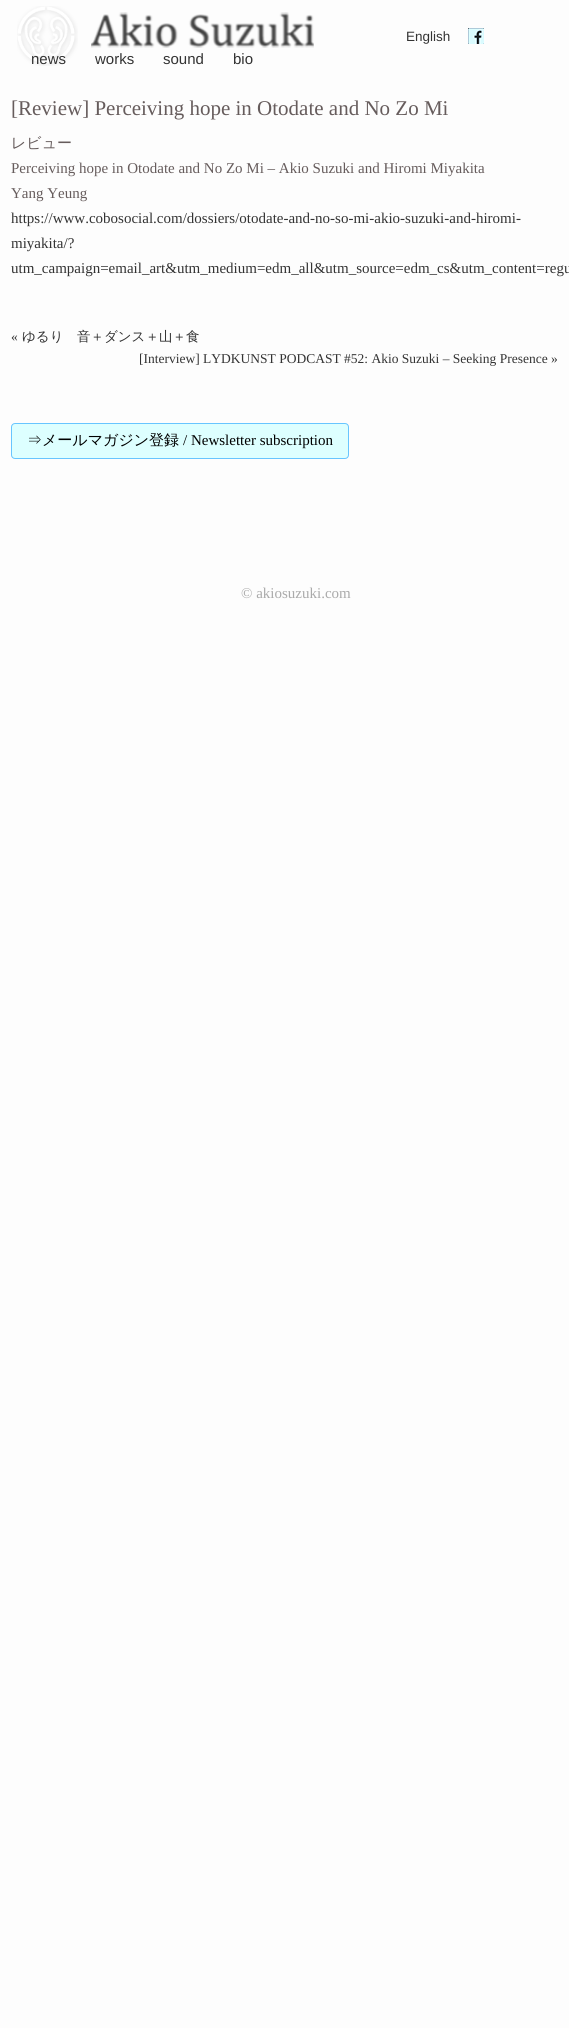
import math
import cairo

surface = cairo.ImageSurface(cairo.FORMAT_RGB24, 569, 2028)
c = cairo.Context(surface)
options = cairo.FontOptions()
options.set_hint_metrics(cairo.HINT_METRICS_OFF)
options.set_hint_style(cairo.HINT_STYLE_NONE)
c.set_font_options(options)
c.set_miter_limit(4)
def C(code):
 c.set_source_rgb(*(v / 255 for v in bytes.fromhex(code[-6:])))
def F(family, size, italic, bold):
 c.select_font_face(family, cairo.FONT_SLANT_ITALIC if italic else cairo.FONT_SLANT_NORMAL, cairo.FONT_WEIGHT_BOLD if bold else cairo.FONT_WEIGHT_NORMAL)
 c.set_font_size(size)
def T(x, y, s):
 c.move_to(x, y)
 c.show_text(s)
def Q(x, y, w, h, r):
 c.new_sub_path()
 for i, (u, v) in enumerate([(x + w - r, y + h - r), (x + r, y + h - r), (x + r, y + r), (x + w - r, y + r)]):
  c.arc(u, v, r, i * math.pi / 2, (i + 1) * math.pi / 2)
 c.close_path()
def I(path, x, y, w, h):
 c.save()
 c.set_source_surface(cairo.ImageSurface.create_from_png(path), x, y)
 c.rectangle(x, y, w, h)
 c.fill()
 c.restore()
C('fdfdfd')
c.paint()
I('1.png',17,6,61,60)
I('2.png',91,12,223,36)
F('Liberation Sans',13.5,0,0)
C('333333')
T(406,41,'English')
I('3.png',468,28,16,16)
F('Liberation Sans',15,0,0)
T(31,64,'news')
T(95,64,'works')
T(163,64,'sound')
T(233,64,'bio')
F('Liberation Serif',21,0,0)
C('665c5c')
T(11,115,'[Review] Perceiving hope in Otodate and No Zo Mi')
F('WenQuanYi Zen Hei Medium',15,0,0)
T(11,148,'レビュー')
F('Liberation Serif',15,0,0)
T(11,173,'Perceiving hope in Otodate and No Zo Mi – Akio Suzuki and Hiromi Miyakita')
T(11,198,'Yang Yeung')
C('333333')
T(11,223,'https://www.cobosocial.com/dossiers/otodate-and-no-so-mi-akio-suzuki-and-hiromi-')
T(11,248,'miyakita/?')
T(11,273,'utm_campaign=email_art&utm_medium=edm_all&utm_source=edm_cs&utm_content=regu')
F('Liberation Serif',13.5,0,0)
T(11,341,'«')
F('WenQuanYi Zen Hei Medium',13.5,0,0)
T(22,341,'ゆるり　音＋ダンス＋山＋食')
F('Liberation Serif',13.5,0,0)
T(139,363,'[Interview] LYDKUNST PODCAST #52: Akio Suzuki – Seeking Presence »')
C('ddffff')
Q(11.5,423.5,337,35,3.5)
c.fill_preserve()
C('67c5ff')
c.set_line_width(1)
c.stroke()
F('WenQuanYi Zen Hei Medium',15,0,0)
C('000000')
T(27,445,'⇒メールマガジン登録')
F('Liberation Serif',15,0,0)
T(183,445,'/ Newsletter subscription')
C('aaaaaa')
T(241,598,'© akiosuzuki.com')
surface.write_to_png('o.png')
